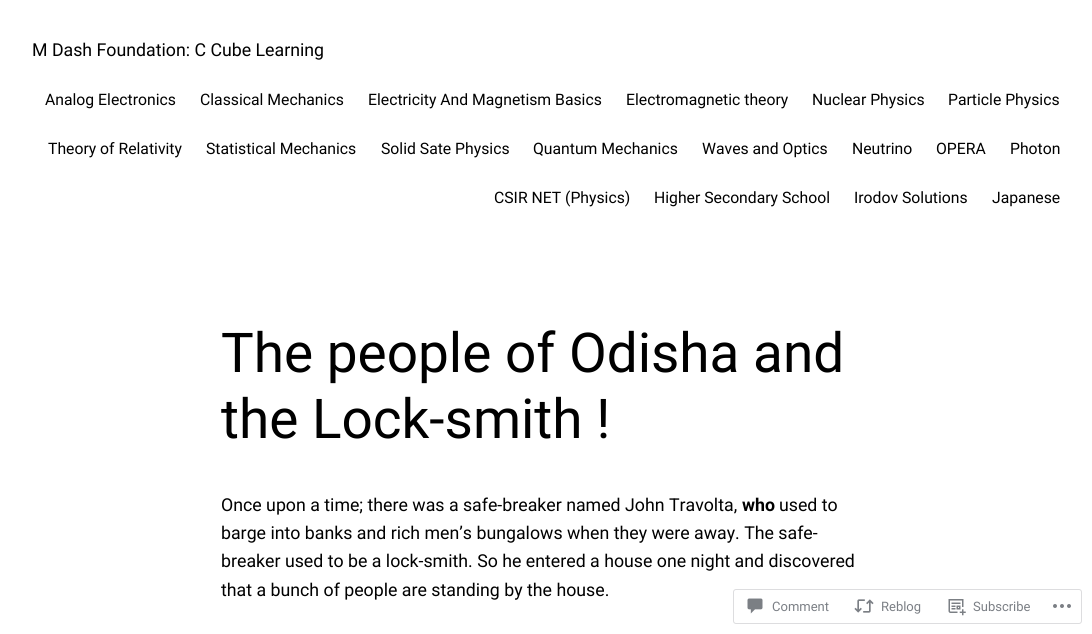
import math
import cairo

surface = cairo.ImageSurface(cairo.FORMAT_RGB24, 1092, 634)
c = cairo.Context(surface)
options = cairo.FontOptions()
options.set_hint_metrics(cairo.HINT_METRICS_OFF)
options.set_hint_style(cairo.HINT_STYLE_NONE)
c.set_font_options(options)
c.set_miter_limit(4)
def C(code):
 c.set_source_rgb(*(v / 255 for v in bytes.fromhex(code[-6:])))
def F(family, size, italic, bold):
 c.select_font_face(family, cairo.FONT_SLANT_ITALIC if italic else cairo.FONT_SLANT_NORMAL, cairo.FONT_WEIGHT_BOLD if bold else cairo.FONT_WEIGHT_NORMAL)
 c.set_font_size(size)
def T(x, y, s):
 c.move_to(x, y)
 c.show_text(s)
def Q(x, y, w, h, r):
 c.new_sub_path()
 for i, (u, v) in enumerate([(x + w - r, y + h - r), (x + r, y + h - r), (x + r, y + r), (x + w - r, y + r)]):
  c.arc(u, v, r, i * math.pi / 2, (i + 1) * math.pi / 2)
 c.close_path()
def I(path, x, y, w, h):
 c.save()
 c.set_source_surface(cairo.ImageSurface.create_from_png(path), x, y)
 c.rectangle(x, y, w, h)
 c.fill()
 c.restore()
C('ffffff')
c.paint()
F('Roboto',17.75,0,0)
C('000000')
T(32,56,'M Dash Foundation: C Cube Learning')
F('Roboto',15.75,0,0)
T(45,105,'Analog Electronics')
T(200,105,'Classical Mechanics')
T(368,105,'Electricity And Magnetism Basics')
T(626,105,'Electromagnetic theory')
T(812,105,'Nuclear Physics')
T(948,105,'Particle Physics')
T(48,154,'Theory of Relativity')
T(206,154,'Statistical Mechanics')
T(381,154,'Solid Sate Physics')
T(533,154,'Quantum Mechanics')
T(702,154,'Waves and Optics')
T(852,154,'Neutrino')
T(936,154,'OPERA')
T(1010,154,'Photon')
T(494,203,'CSIR NET (Physics)')
T(654,203,'Higher Secondary School')
T(854,203,'Irodov Solutions')
T(992,203,'Japanese')
F('Roboto',54.9,0,0)
T(221,372,'The people of Odisha and')
T(221,438,'the Lock-smith !')
F('Roboto',17.75,0,0)
T(221,511,'Once upon a time; there was a safe-breaker named John Travolta,')
F('Roboto',17.75,0,1)
T(742,511,'who')
F('Roboto',17.75,0,0)
T(779,511,'used to')
T(221,539,'barge into banks and rich men’s bungalows when they were away. The safe-')
T(221,567,'breaker used to be a lock-smith. So he entered a house one night and discovered')
T(221,596,'that a bunch of people are standing by the house.')
Q(733.5,589.5,348,34,2.5)
C('dddddf')
c.set_line_width(1)
c.stroke()
I('1.png',747,598,16,16)
F('Roboto',13,0,0)
C('7b7f85')
T(772,611,'Comment')
I('2.png',854,599,20,14)
T(881,611,'Reblog')
I('3.png',948,599,18,17)
T(973,611,'Subscribe')
I('4.png',1053,604,18,4)
surface.write_to_png('o.png')
